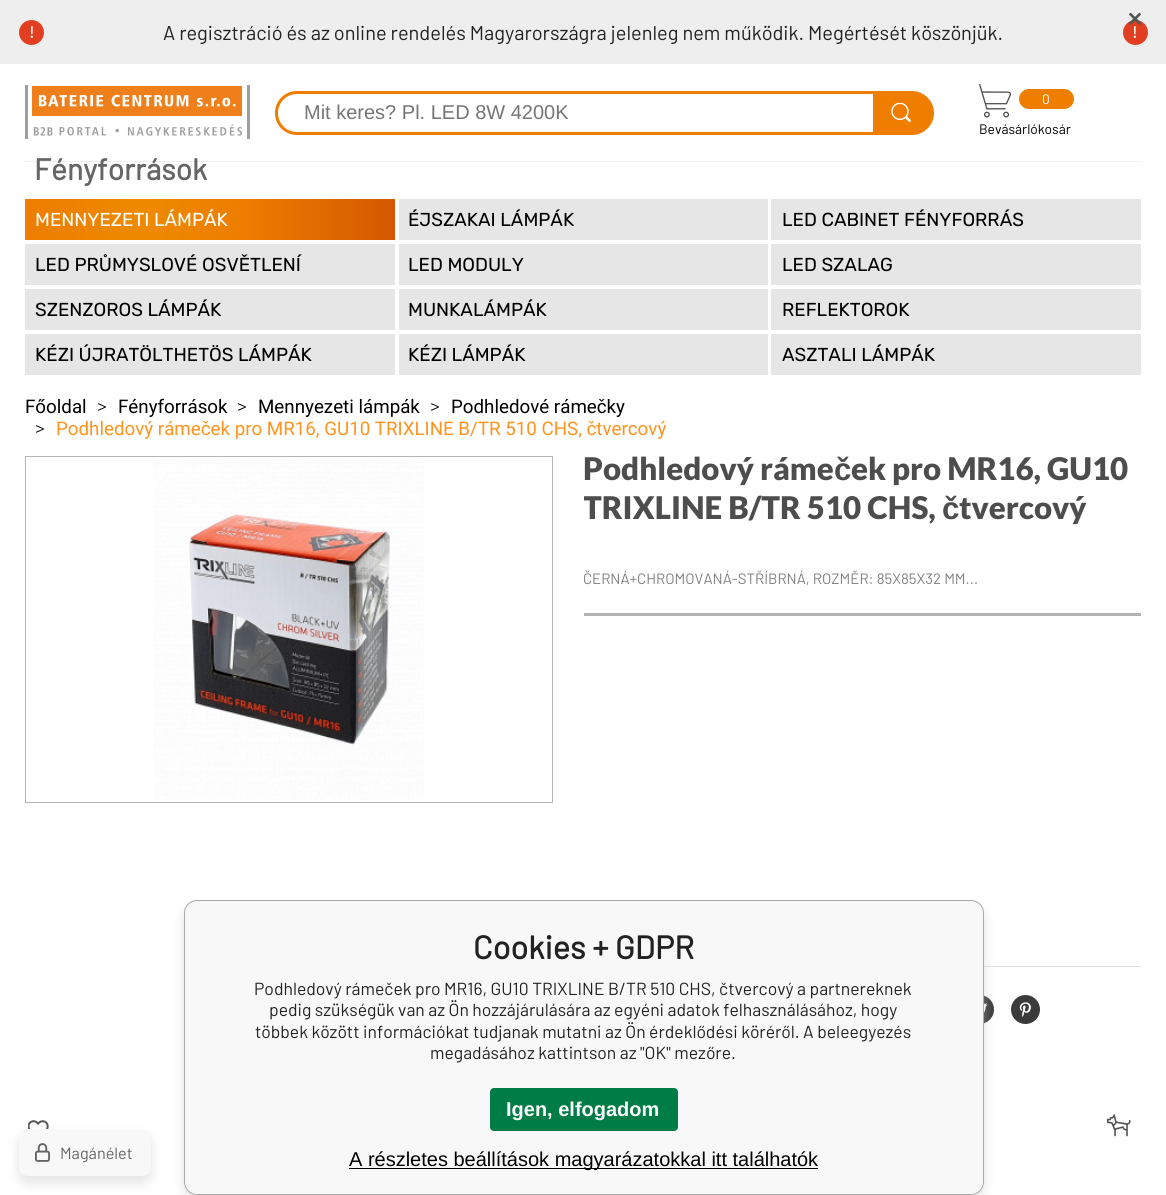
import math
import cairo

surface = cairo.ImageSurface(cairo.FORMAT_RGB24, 1166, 1195)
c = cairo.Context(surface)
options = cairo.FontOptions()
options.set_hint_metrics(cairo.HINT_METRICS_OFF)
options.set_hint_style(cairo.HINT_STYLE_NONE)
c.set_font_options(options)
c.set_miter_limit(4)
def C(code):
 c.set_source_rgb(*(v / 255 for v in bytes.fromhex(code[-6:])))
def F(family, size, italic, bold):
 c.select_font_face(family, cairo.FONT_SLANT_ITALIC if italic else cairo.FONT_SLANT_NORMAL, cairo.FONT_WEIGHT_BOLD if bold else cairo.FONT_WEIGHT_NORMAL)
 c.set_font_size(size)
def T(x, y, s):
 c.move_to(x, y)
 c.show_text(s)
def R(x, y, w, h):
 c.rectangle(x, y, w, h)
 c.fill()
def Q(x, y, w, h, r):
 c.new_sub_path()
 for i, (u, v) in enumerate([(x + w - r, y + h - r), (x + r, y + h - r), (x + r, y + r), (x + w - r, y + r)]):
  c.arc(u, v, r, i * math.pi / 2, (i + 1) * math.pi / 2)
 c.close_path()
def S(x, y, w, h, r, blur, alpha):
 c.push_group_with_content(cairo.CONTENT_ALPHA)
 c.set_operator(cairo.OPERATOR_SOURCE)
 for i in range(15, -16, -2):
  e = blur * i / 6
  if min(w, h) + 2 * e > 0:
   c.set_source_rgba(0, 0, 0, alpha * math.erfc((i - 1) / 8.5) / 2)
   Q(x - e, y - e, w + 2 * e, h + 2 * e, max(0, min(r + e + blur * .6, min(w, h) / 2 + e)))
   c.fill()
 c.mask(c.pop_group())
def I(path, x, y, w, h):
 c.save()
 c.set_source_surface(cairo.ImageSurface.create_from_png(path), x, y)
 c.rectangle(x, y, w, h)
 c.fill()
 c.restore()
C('ffffff')
c.paint()
C('eeeeee')
R(0,0,1166,64)
C('e23e21')
c.arc(1135.5,32.5,12.5,0,2 * math.pi)
c.fill()
I('1.png',1129,13,12,12)
c.arc(31.5,32.5,12.5,0,2 * math.pi)
c.fill()
F('Barlow',16.25,0,1)
C('ffffff')
T(29,38,'!')
F('Barlow',20,0,0)
C('222222')
T(163,40,'A regisztráció és az online rendelés Magyarországra jelenleg nem működik. Megértését köszönjük.')
F('Barlow',16.25,0,1)
C('ffffff')
T(1132,38,'!')
C('eeeeee')
R(25,161,1116,1)
I('2.png',25,85,225,54)
c.new_path()
c.move_to(297,92.5)
c.line_to(874.5,92.5)
c.line_to(874.5,133.5)
c.line_to(297,133.5)
c.curve_to(285.5,133.5,276.5,124.5,276.5,113)
c.curve_to(276.5,101.5,285.5,92.5,297,92.5)
c.close_path()
C('ee7d00')
c.set_line_width(3)
c.stroke()
F('Liberation Sans',20,0,0)
C('757575')
T(304,119,'Mit keres? Pl. LED 8W 4200K')
C('ee7d00')
c.new_path()
c.move_to(876,91)
c.line_to(912,91)
c.curve_to(924,91,934,101,934,113)
c.curve_to(934,125,924,135,912,135)
c.line_to(876,135)
c.close_path()
c.fill()
I('3.png',891,103,20,20)
I('4.png',979,84,32,34)
Q(1019,89,55,20,10)
c.fill()
F('Barlow',13.75,0,0)
C('ffffff')
T(1042,104,'0')
C('000000')
T(979,134,'Bevásárlókosár')
F('Barlow',30,0,1)
C('666666')
T(34,180,'Fényforrások')
gradient = cairo.LinearGradient(25,219,395,219)
gradient.add_color_stop_rgba(0,0.933,0.49,0,1)
gradient.add_color_stop_rgba(.32,0.933,0.541,0,1)
gradient.add_color_stop_rgba(.59,0.933,0.49,0,1)
gradient.add_color_stop_rgba(1,0.831,0.345,0,1)
c.set_source(gradient)
R(25,199,370,41)
F('Rubik',18.75,0,0)
C('ffffff')
T(35,226,'MENNYEZETI LÁMPÁK')
C('e6e6e6')
R(399,199,369,41)
C('000000')
T(408,226,'ÉJSZAKAI LÁMPÁK')
C('e6e6e6')
R(771,199,370,41)
C('000000')
T(782,226,'LED CABINET FÉNYFORRÁS')
C('e6e6e6')
R(25,244,370,41)
C('000000')
T(35,271,'LED PRŮMYSLOVÉ OSVĚTLENÍ')
C('e6e6e6')
R(399,244,369,41)
C('000000')
T(408,271,'LED MODULY')
C('e6e6e6')
R(771,244,370,41)
C('000000')
T(782,271,'LED SZALAG')
C('e6e6e6')
R(25,289,370,41)
C('000000')
T(35,316,'SZENZOROS LÁMPÁK')
C('e6e6e6')
R(399,289,369,41)
C('000000')
T(408,316,'MUNKALÁMPÁK')
C('e6e6e6')
R(771,289,370,41)
C('000000')
T(782,316,'REFLEKTOROK')
C('e6e6e6')
R(25,334,370,41)
C('000000')
T(35,361,'KÉZI ÚJRATÖLTHETÖS LÁMPÁK')
C('e6e6e6')
R(399,334,369,41)
C('000000')
T(408,361,'KÉZI LÁMPÁK')
C('e6e6e6')
R(771,334,370,41)
C('000000')
T(782,361,'ASZTALI LÁMPÁK')
F('Roboto',18.75,0,0)
T(25,413,'Főoldal')
F('Roboto Light',18.75,0,0)
T(97,413,'>')
F('Roboto',18.75,0,0)
T(118,413,'Fényforrások')
F('Roboto Light',18.75,0,0)
T(237,413,'>')
F('Roboto',18.75,0,0)
T(258,413,'Mennyezeti lámpák')
F('Roboto Light',18.75,0,0)
T(430,413,'>')
F('Roboto',18.75,0,0)
T(451,413,'Podhledové rámečky')
F('Roboto Light',18.75,0,0)
T(35,435,'>')
F('Roboto',18.75,0,0)
C('ff931e')
T(56,435,'Podhledový rámeček pro MR16, GU10 TRIXLINE B/TR 510 CHS, čtvercový')
c.rectangle(25.5,456.5,527,346)
C('b5b5b5')
c.set_line_width(1)
c.stroke()
I('5.png',154,459,270,341)
F('Lato Black',31.25,0,0)
C('4d4d4d')
T(583,480,'Podhledový ráme')
F('Liberation Sans',31.25,0,1)
T(834,480,'č')
F('Lato Black',31.25,0,0)
T(851,480,'ek pro MR16, GU10')
c.save()
c.rectangle(584,449,557,85)
c.clip()
T(583,519,'TRIXLINE B/TR 510 CHS,')
c.restore()
F('Liberation Sans',31.25,0,1)
T(942,519,'č')
F('Lato Black',31.25,0,0)
T(959,519,'tvercový')
C('b3b3b3')
R(584,613,557,3)
F('Barlow',15,0,0)
C('808080')
T(583,584,'ČERNÁ+CHROMOVANÁ-STŘÍBRNÁ, ROZMĚR: 85X85X32 MM...')
C('e0e0e0')
R(984,966,157,1)
C('3b3b3b')
c.new_path()
c.arc(979.5,1009.5,14.5,0,2 * math.pi)
c.fill()
I('6.png',984,1003,4,10)
c.arc(1025.5,1009.5,14.5,0,2 * math.pi)
c.fill()
I('7.png',1019,1002,12,15)
I('8.png',28,1120,21,9)
I('9.png',1106,1114,25,23)
C('c8c8c8')
S(19,1135,132,48,9,6,.5)
C('f8f8f8')
Q(19,1129,132,47,9)
c.fill()
I('10.png',35,1143,15,19)
F('Barlow',16.25,0,0)
C('666666')
T(60,1159,'Magánélet')
C('c8c8c8')
S(184,906,800,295,13,6,.5)
C('f8f8f8')
Q(184.5,900.5,799,294,12.5)
c.fill_preserve()
C('aaaaaa')
c.stroke()
F('Barlow',32.5,0,1)
C('222222')
T(473,959,'Cookies + GDPR')
F('Barlow',17.5,0,0)
T(254,995,'Podhledový rámeček pro MR16, GU10 TRIXLINE B/TR 510 CHS, čtvercový a partnereknek')
T(269,1016,'pedig szükségük van az Ön hozzájárulására az egyéni adatok felhasználásához, hogy')
T(255,1038,'többek között információkat tudjanak mutatni az Ön érdeklődési köréről. A beleegyezés')
T(430,1059,'megadásához kattintson az "OK" mezőre.')
C('007c47')
Q(490.5,1088.5,187,42,3.5)
c.fill_preserve()
c.stroke()
F('Liberation Sans',20,0,1)
C('ffffff')
T(506,1116,'Igen, elfogadom')
C('000000')
R(349,1168,469,1)
F('Liberation Sans',20,0,0)
T(349,1166,'A részletes beállítások magyarázatokkal itt találhatók')
surface.write_to_png('o.png')
